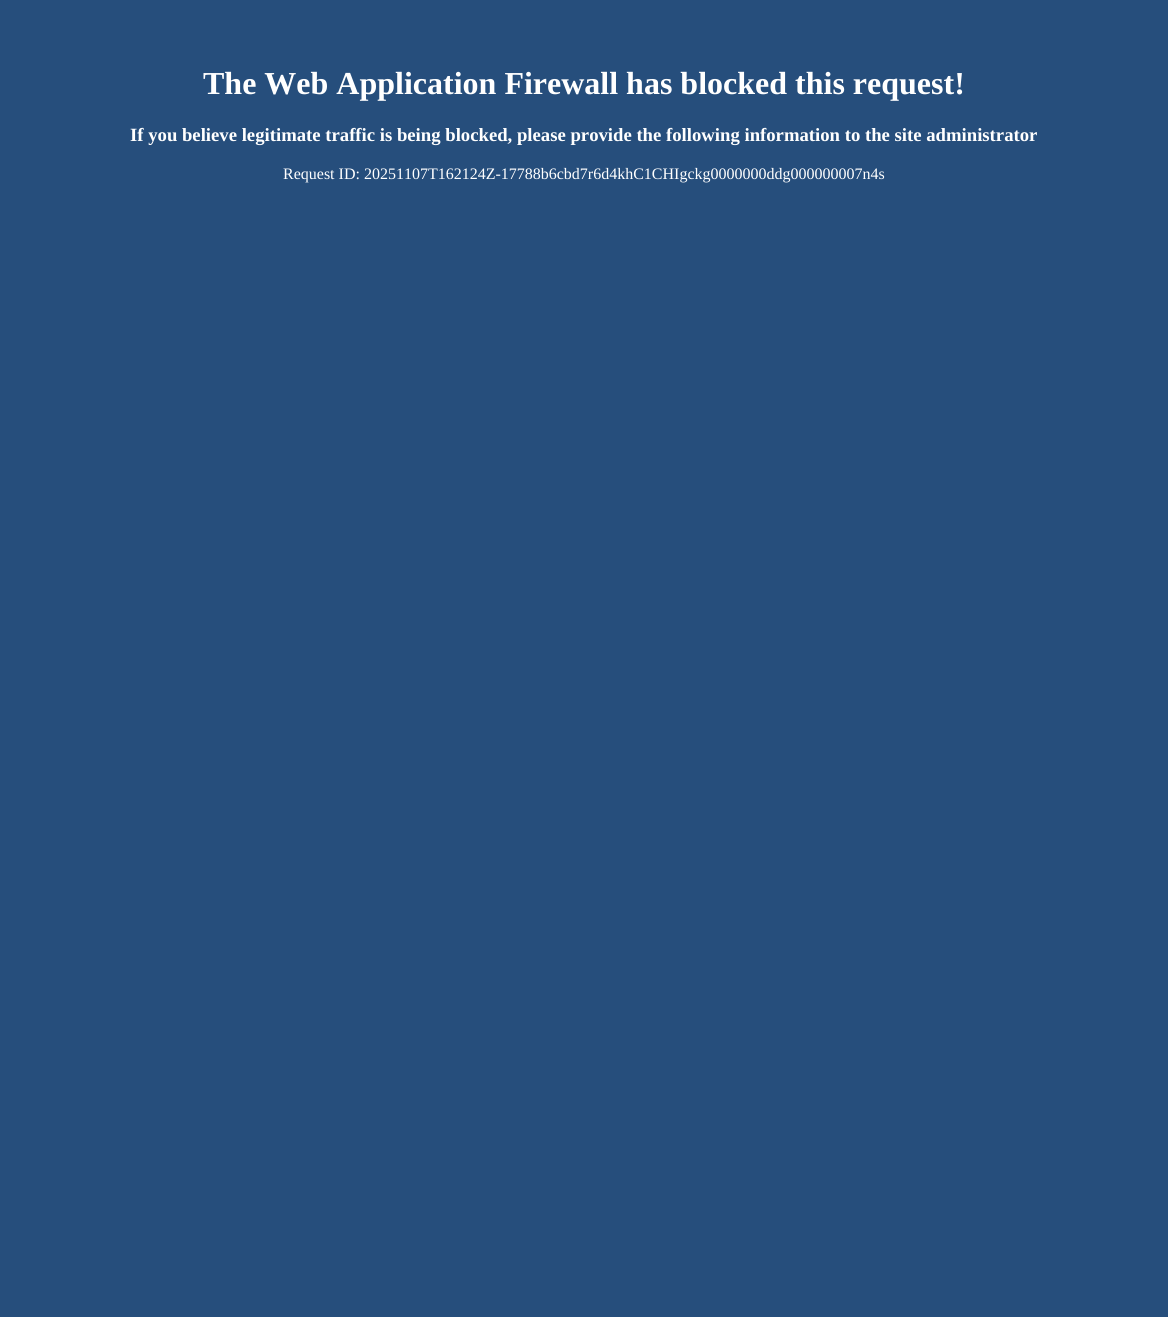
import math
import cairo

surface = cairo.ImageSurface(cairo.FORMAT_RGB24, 1168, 1317)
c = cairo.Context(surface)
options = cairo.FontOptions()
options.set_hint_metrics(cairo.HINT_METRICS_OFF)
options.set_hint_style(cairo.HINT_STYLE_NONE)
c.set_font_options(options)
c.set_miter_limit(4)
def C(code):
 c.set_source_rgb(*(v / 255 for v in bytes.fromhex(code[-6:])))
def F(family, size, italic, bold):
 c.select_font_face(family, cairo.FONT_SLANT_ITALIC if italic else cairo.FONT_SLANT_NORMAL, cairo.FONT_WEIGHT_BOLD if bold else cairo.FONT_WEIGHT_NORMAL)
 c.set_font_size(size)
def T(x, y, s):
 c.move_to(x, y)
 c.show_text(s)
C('264e7c')
c.paint()
F('Liberation Serif',32,0,1)
C('ffffff')
T(203,94,'The Web Application Firewall has blocked this request!')
F('Liberation Serif',18.7,0,1)
T(130,141,'If you believe legitimate traffic is being blocked, please provide the following information to the site administrator')
F('Liberation Serif',16,0,0)
T(283,179,'Request ID: 20251107T162124Z-17788b6cbd7r6d4khC1CHIgckg0000000ddg000000007n4s')
surface.write_to_png('o.png')
